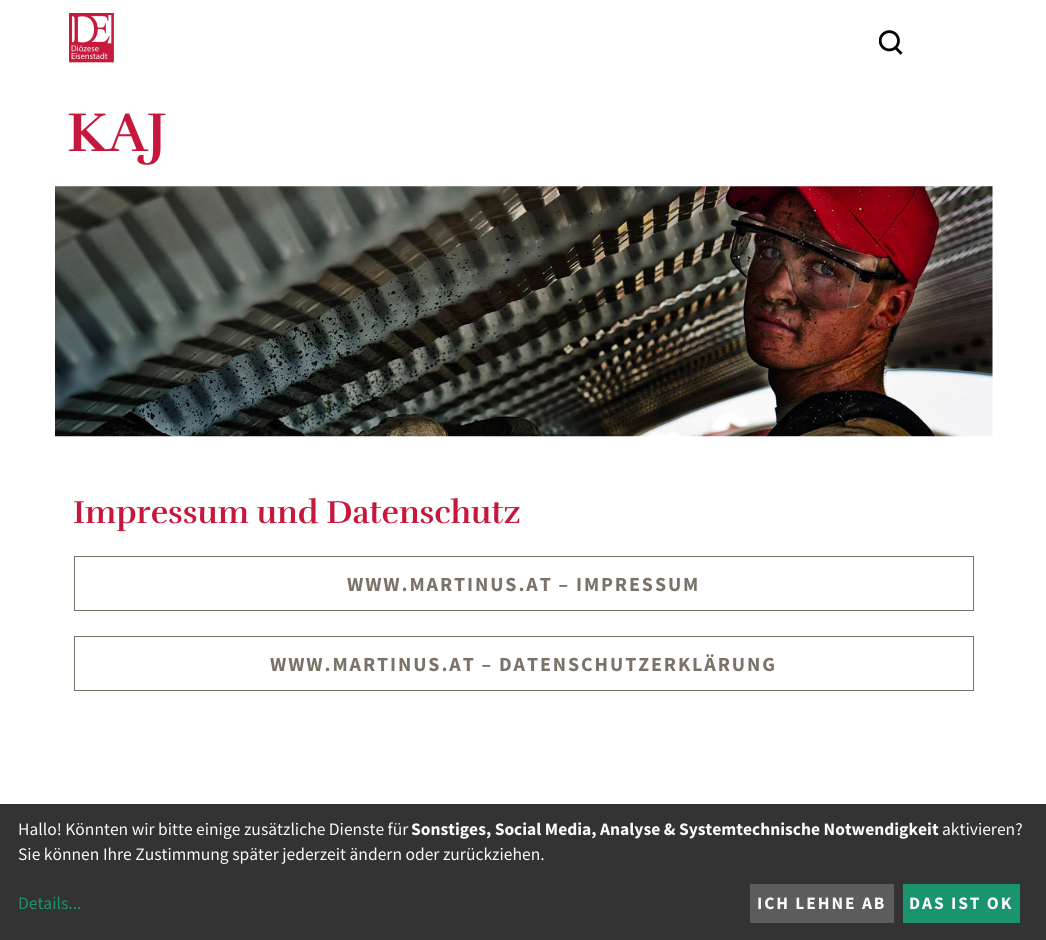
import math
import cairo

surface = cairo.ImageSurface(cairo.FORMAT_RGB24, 1046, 940)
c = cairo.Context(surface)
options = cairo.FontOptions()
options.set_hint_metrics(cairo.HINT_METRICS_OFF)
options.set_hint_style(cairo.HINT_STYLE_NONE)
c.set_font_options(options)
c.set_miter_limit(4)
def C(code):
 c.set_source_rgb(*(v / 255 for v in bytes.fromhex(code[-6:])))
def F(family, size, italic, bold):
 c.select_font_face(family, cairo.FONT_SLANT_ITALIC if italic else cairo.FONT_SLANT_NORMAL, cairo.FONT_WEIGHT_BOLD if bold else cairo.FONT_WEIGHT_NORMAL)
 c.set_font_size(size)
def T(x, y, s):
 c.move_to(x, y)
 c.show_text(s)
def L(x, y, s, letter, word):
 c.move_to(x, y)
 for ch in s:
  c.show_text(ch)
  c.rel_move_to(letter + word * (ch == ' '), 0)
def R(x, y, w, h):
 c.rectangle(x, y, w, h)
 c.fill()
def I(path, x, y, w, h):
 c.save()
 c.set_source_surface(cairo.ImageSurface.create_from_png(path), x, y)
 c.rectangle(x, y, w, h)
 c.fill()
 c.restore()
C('ffffff')
c.paint()
I('1.png',69,13,45,50)
I('2.png',879,30,24,25)
F('Rufina',56,0,1)
C('c6183d')
T(67,151,'KAJ')
I('3.png',55,186,938,251)
F('Rufina',32.5,0,1)
T(73,523,'Impressum und Datenschutz')
c.rectangle(74.5,556.5,899,54)
C('7d7267')
c.set_line_width(1)
c.stroke()
F('Source Sans Pro',20,0,1)
L(347,591,'WWW.MARTINUS.AT – IMPRESSUM',1.9,0)
c.rectangle(74.5,636.5,899,54)
c.stroke()
L(270,671,'WWW.MARTINUS.AT – DATENSCHUTZERKLÄRUNG',1.9,0)
C('333333')
R(0,804,1046,136)
F('Source Sans Pro',17.5,0,0)
C('fafafa')
T(18,835,'Hallo! Könnten wir bitte einige zusätzliche Dienste für')
F('Source Sans Pro',17.5,0,1)
T(411,835,'Sonstiges, Social Media, Analyse & Systemtechnische Notwendigkeit')
F('Source Sans Pro',17.5,0,0)
T(942,835,'aktivieren?')
T(18,860,'Sie können Ihre Zustimmung später jederzeit ändern oder zurückziehen.')
C('1a936f')
T(18,909,'Details...')
C('5c5c5c')
R(750,884,144,39)
F('Source Sans Pro',17.5,0,1)
C('fafafa')
L(757,909,'ICH LEHNE AB',1.9,0)
C('1a936f')
R(903,884,117,39)
C('fafafa')
L(909,909,'DAS IST OK',1.9,0)
surface.write_to_png('o.png')
